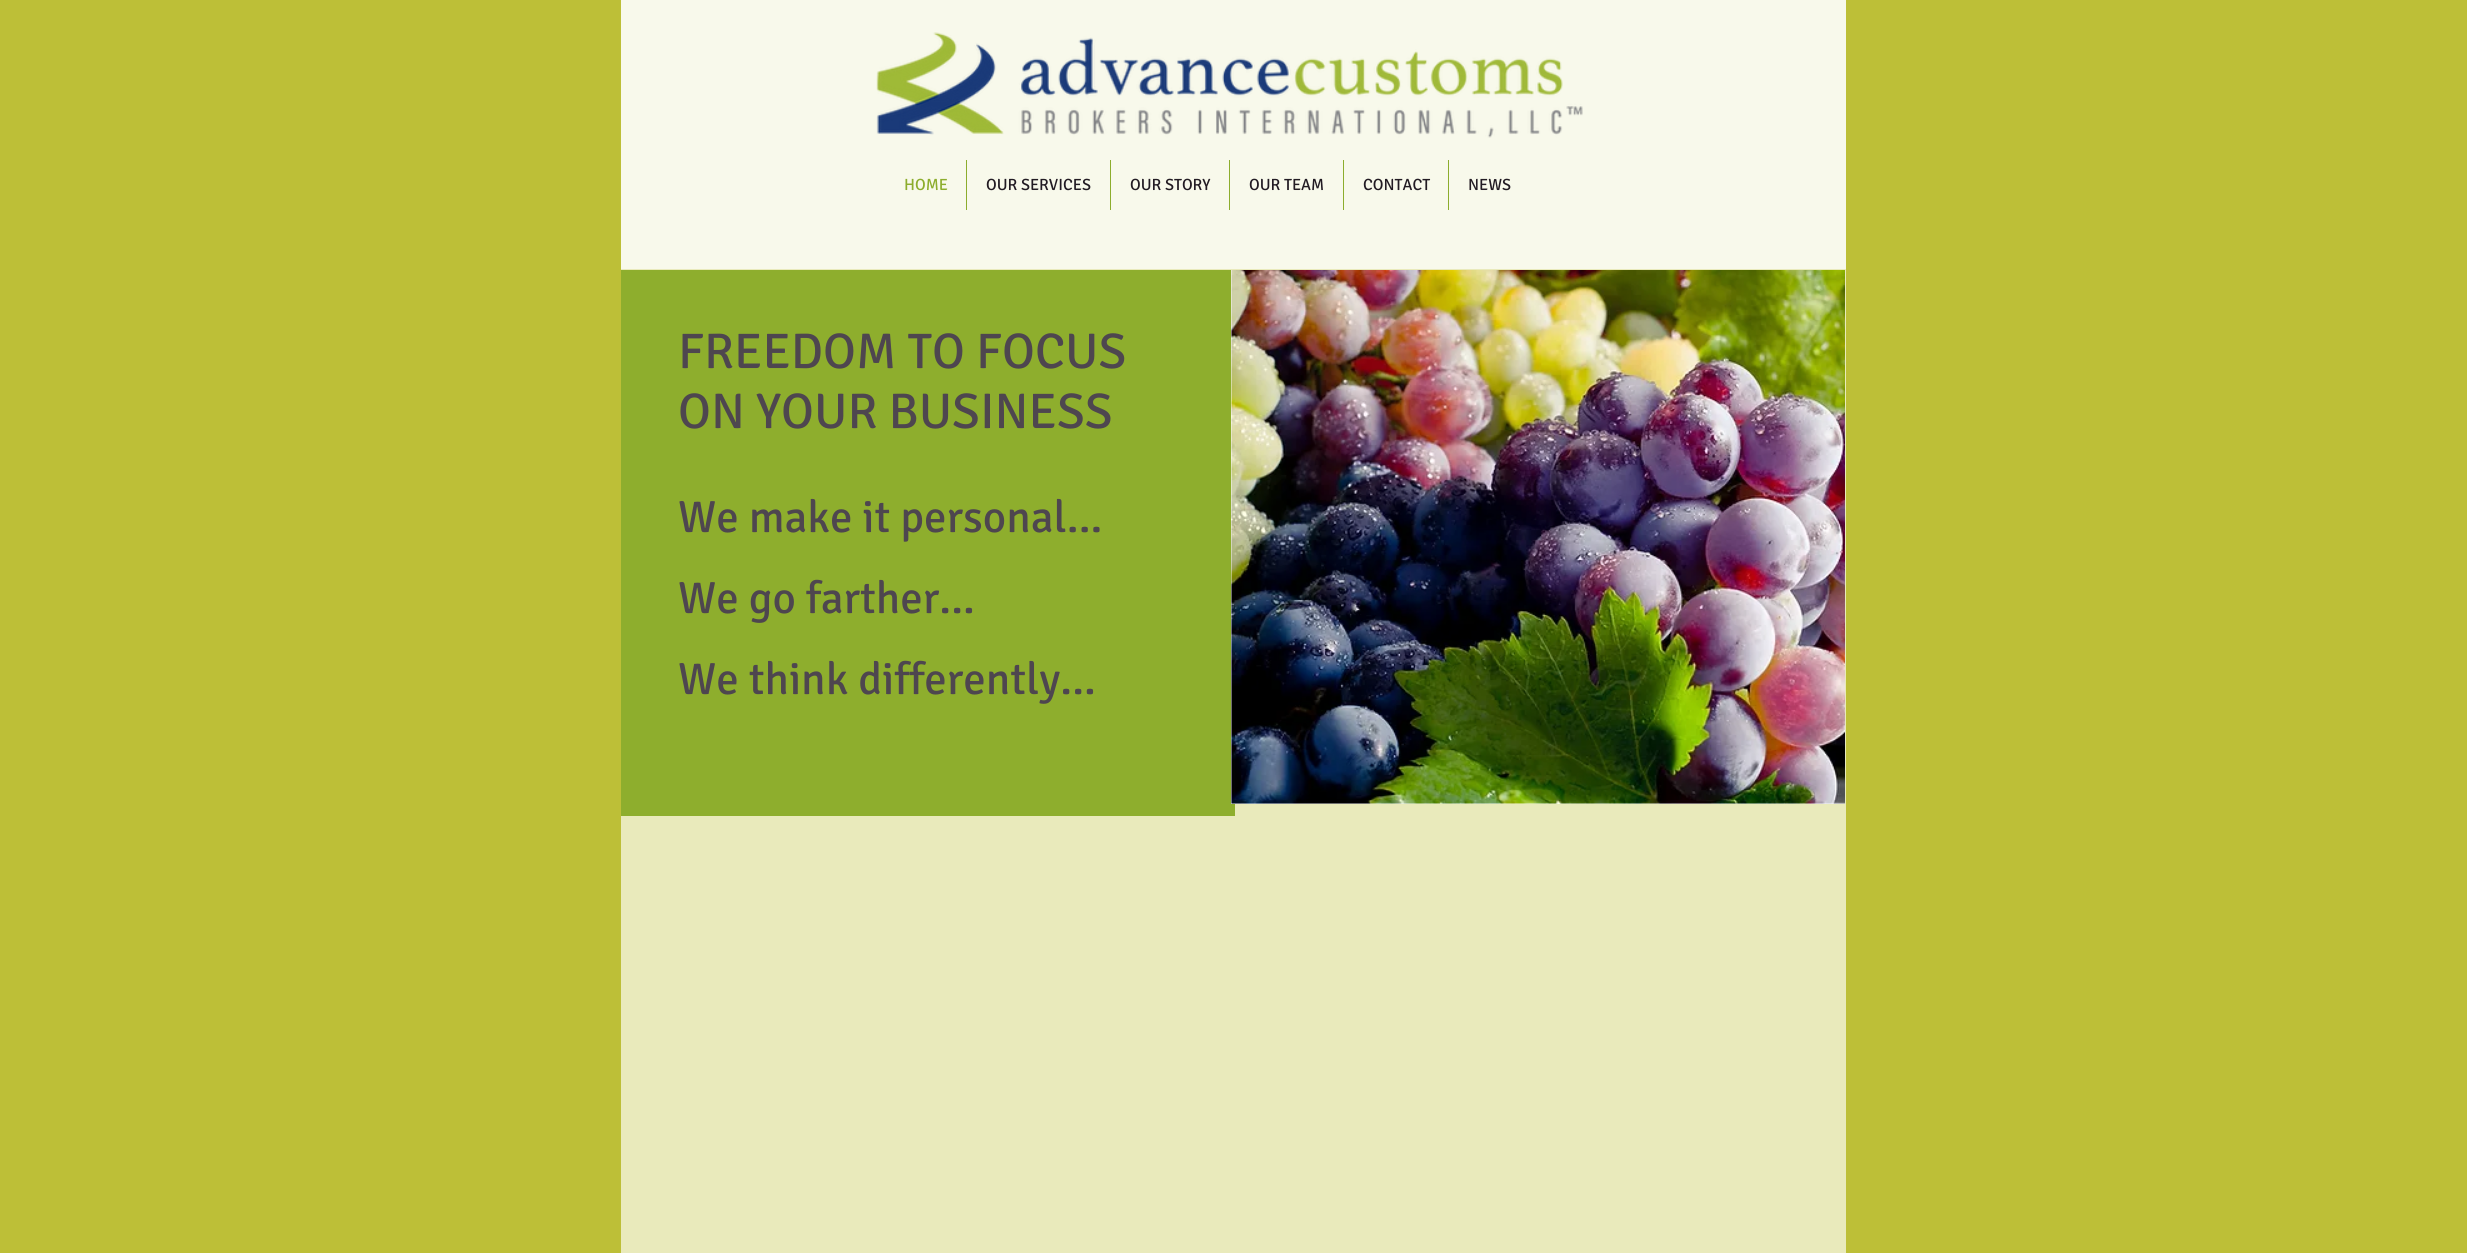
import math
import cairo

surface = cairo.ImageSurface(cairo.FORMAT_RGB24, 2467, 1253)
c = cairo.Context(surface)
options = cairo.FontOptions()
options.set_hint_metrics(cairo.HINT_METRICS_OFF)
options.set_hint_style(cairo.HINT_STYLE_NONE)
c.set_font_options(options)
c.set_miter_limit(4)
def C(code):
 c.set_source_rgb(*(v / 255 for v in bytes.fromhex(code[-6:])))
def F(family, size, italic, bold):
 c.select_font_face(family, cairo.FONT_SLANT_ITALIC if italic else cairo.FONT_SLANT_NORMAL, cairo.FONT_WEIGHT_BOLD if bold else cairo.FONT_WEIGHT_NORMAL)
 c.set_font_size(size)
def T(x, y, s):
 c.move_to(x, y)
 c.show_text(s)
def R(x, y, w, h):
 c.rectangle(x, y, w, h)
 c.fill()
def I(path, x, y, w, h):
 c.save()
 c.set_source_surface(cairo.ImageSurface.create_from_png(path), x, y)
 c.rectangle(x, y, w, h)
 c.fill()
 c.restore()
C('bdbf37')
c.paint()
C('f8f9eb')
R(621,0,1225,269)
I('1.png',876,32,707,106)
F('Signika',16.25,0,0)
C('8dad2d')
T(904,190,'HOME')
R(966,160,1,50)
C('221b23')
T(986,190,'OUR SERVICES')
C('8dad2d')
R(1110,160,1,50)
C('221b23')
T(1130,190,'OUR STORY')
C('8dad2d')
R(1229,160,1,50)
C('221b23')
T(1249,190,'OUR TEAM')
C('8dad2d')
R(1343,160,1,50)
C('221b23')
T(1363,190,'CONTACT')
C('8dad2d')
R(1448,160,1,50)
C('221b23')
T(1468,190,'NEWS')
C('e9eabb')
R(621,269,1225,984)
C('8eae2d')
R(621,270,614,546)
F('Signika',50,0,0)
C('4e464f')
T(678,368,'FREEDOM TO FOCUS')
T(678,428,'ON YOUR BUSINESS')
F('Signika',45,0,0)
T(678,532,'We make it personal...')
T(678,613,'We go farther...')
T(678,694,'We think differently...')
C('ffffff')
R(1231,270,614,534)
I('2.png',1231,270,614,534)
surface.write_to_png('o.png')
